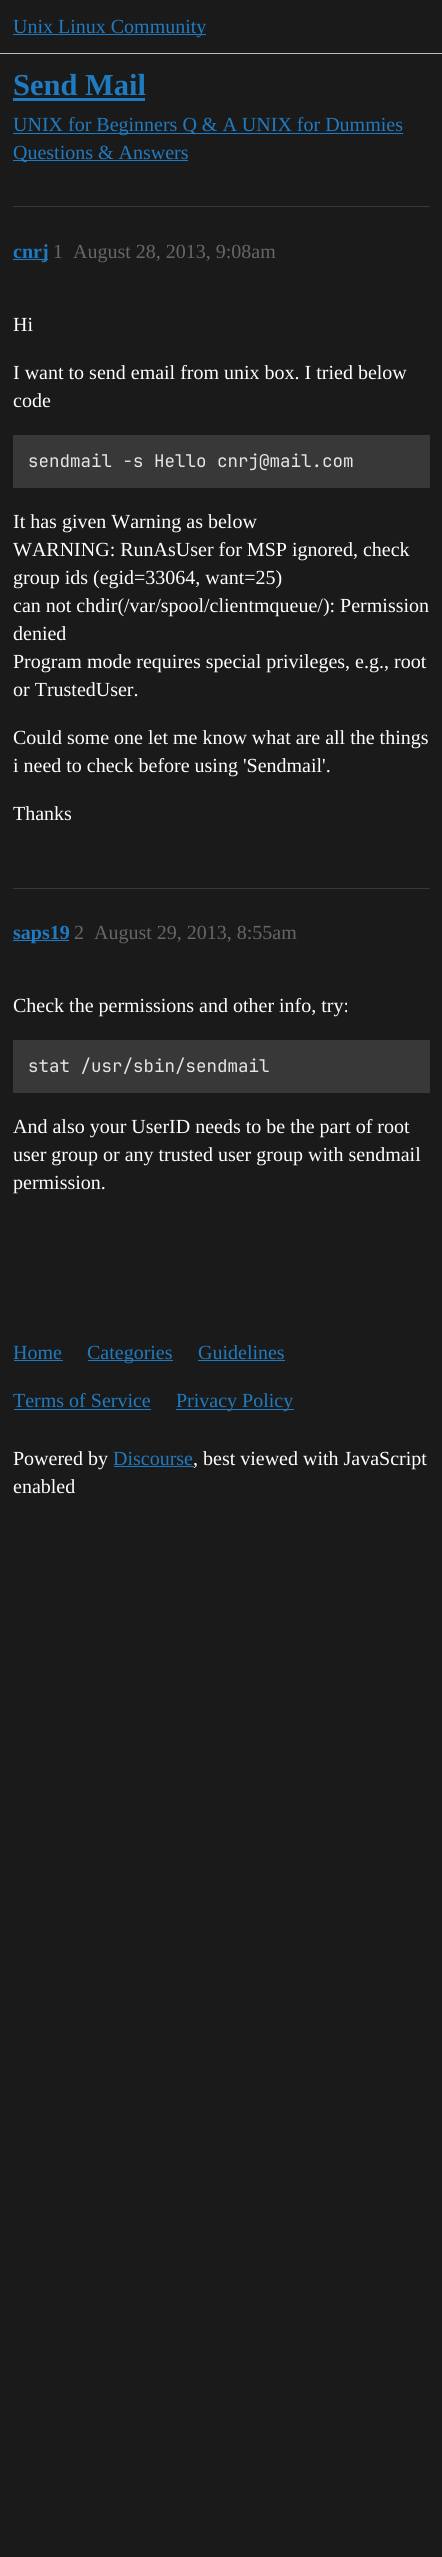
import math
import cairo

surface = cairo.ImageSurface(cairo.FORMAT_RGB24, 442, 2557)
c = cairo.Context(surface)
options = cairo.FontOptions()
options.set_hint_metrics(cairo.HINT_METRICS_OFF)
options.set_hint_style(cairo.HINT_STYLE_NONE)
c.set_font_options(options)
c.set_miter_limit(4)
def C(code):
 c.set_source_rgb(*(v / 255 for v in bytes.fromhex(code[-6:])))
def F(family, size, italic, bold):
 c.select_font_face(family, cairo.FONT_SLANT_ITALIC if italic else cairo.FONT_SLANT_NORMAL, cairo.FONT_WEIGHT_BOLD if bold else cairo.FONT_WEIGHT_NORMAL)
 c.set_font_size(size)
def T(x, y, s):
 c.move_to(x, y)
 c.show_text(s)
def R(x, y, w, h):
 c.rectangle(x, y, w, h)
 c.fill()
C('1a1a1a')
c.paint()
C('bebebe')
R(0,53,442,1)
C('1f7bc1')
R(13,34,193,1)
F('Liberation Serif',20,0,0)
T(13,33,'Unix Linux Community')
F('Liberation Serif',30.5,0,1)
T(13,95,'Send Mail')
R(13,98,132,3)
R(13,133,223,1)
F('Liberation Serif',20,0,0)
T(13,131,'UNIX for Beginners Q & A UNIX for Dummies')
R(236,133,167,1)
R(13,160,175,1)
T(13,159,'Questions & Answers')
C('383838')
R(13,206,417,1)
C('1f7bc1')
R(13,259,35,1)
F('Liberation Serif',20,0,1)
T(13,258,'cnrj')
F('Liberation Serif',20,0,0)
C('666666')
T(53,258,'1')
T(73,258,'August 28, 2013, 9:08am')
C('ffffff')
T(13,331,'Hi')
T(13,379,'I want to send email from unix box. I tried below')
T(13,407,'code')
C('383838')
R(13,435,417,53)
F('JetBrains Mono',17.5,0,0)
C('e6e6e6')
T(28,467,'sendmail -s Hello cnrj@mail.com')
F('Liberation Serif',20,0,0)
C('ffffff')
T(13,528,'It has given Warning as below')
T(13,556,'WARNING: RunAsUser for MSP ignored, check')
T(13,584,'group ids (egid=33064, want=25)')
T(13,612,'can not chdir(/var/spool/clientmqueue/): Permission')
T(13,640,'denied')
T(13,668,'Program mode requires special privileges, e.g., root')
T(13,696,'or TrustedUser.')
T(13,744,'Could some one let me know what are all the things')
T(13,772,'i need to check before using \'Sendmail\'.')
c.save()
c.rectangle(13,291,417,557)
c.clip()
T(13,820,'Thanks')
c.restore()
C('383838')
R(13,888,417,1)
C('1f7bc1')
R(13,940,56,1)
F('Liberation Serif',20,0,1)
T(13,939,'saps19')
F('Liberation Serif',20,0,0)
C('666666')
T(74,939,'2')
T(94,939,'August 29, 2013, 8:55am')
C('ffffff')
T(13,1012,'Check the permissions and other info, try:')
C('383838')
R(13,1040,417,53)
F('JetBrains Mono',17.5,0,0)
C('e6e6e6')
T(28,1072,'stat /usr/sbin/sendmail')
F('Liberation Serif',20,0,0)
C('ffffff')
T(13,1133,'And also your UserID needs to be the part of root')
T(13,1161,'user group or any trusted user group with sendmail')
T(13,1189,'permission.')
C('1f7bc1')
T(13,1359,'Home')
R(14,1360,49,1)
R(88,1360,85,1)
T(87,1359,'Categories')
T(198,1359,'Guidelines')
R(198,1360,87,1)
T(13,1407,'Terms of Service')
R(14,1409,137,1)
R(176,1409,118,1)
T(176,1407,'Privacy Policy')
C('ffffff')
T(13,1465,'Powered by')
C('1f7bc1')
T(113,1465,'Discourse')
R(114,1466,80,1)
C('ffffff')
T(193,1465,', best viewed with JavaScript')
T(13,1493,'enabled')
surface.write_to_png('o.png')
